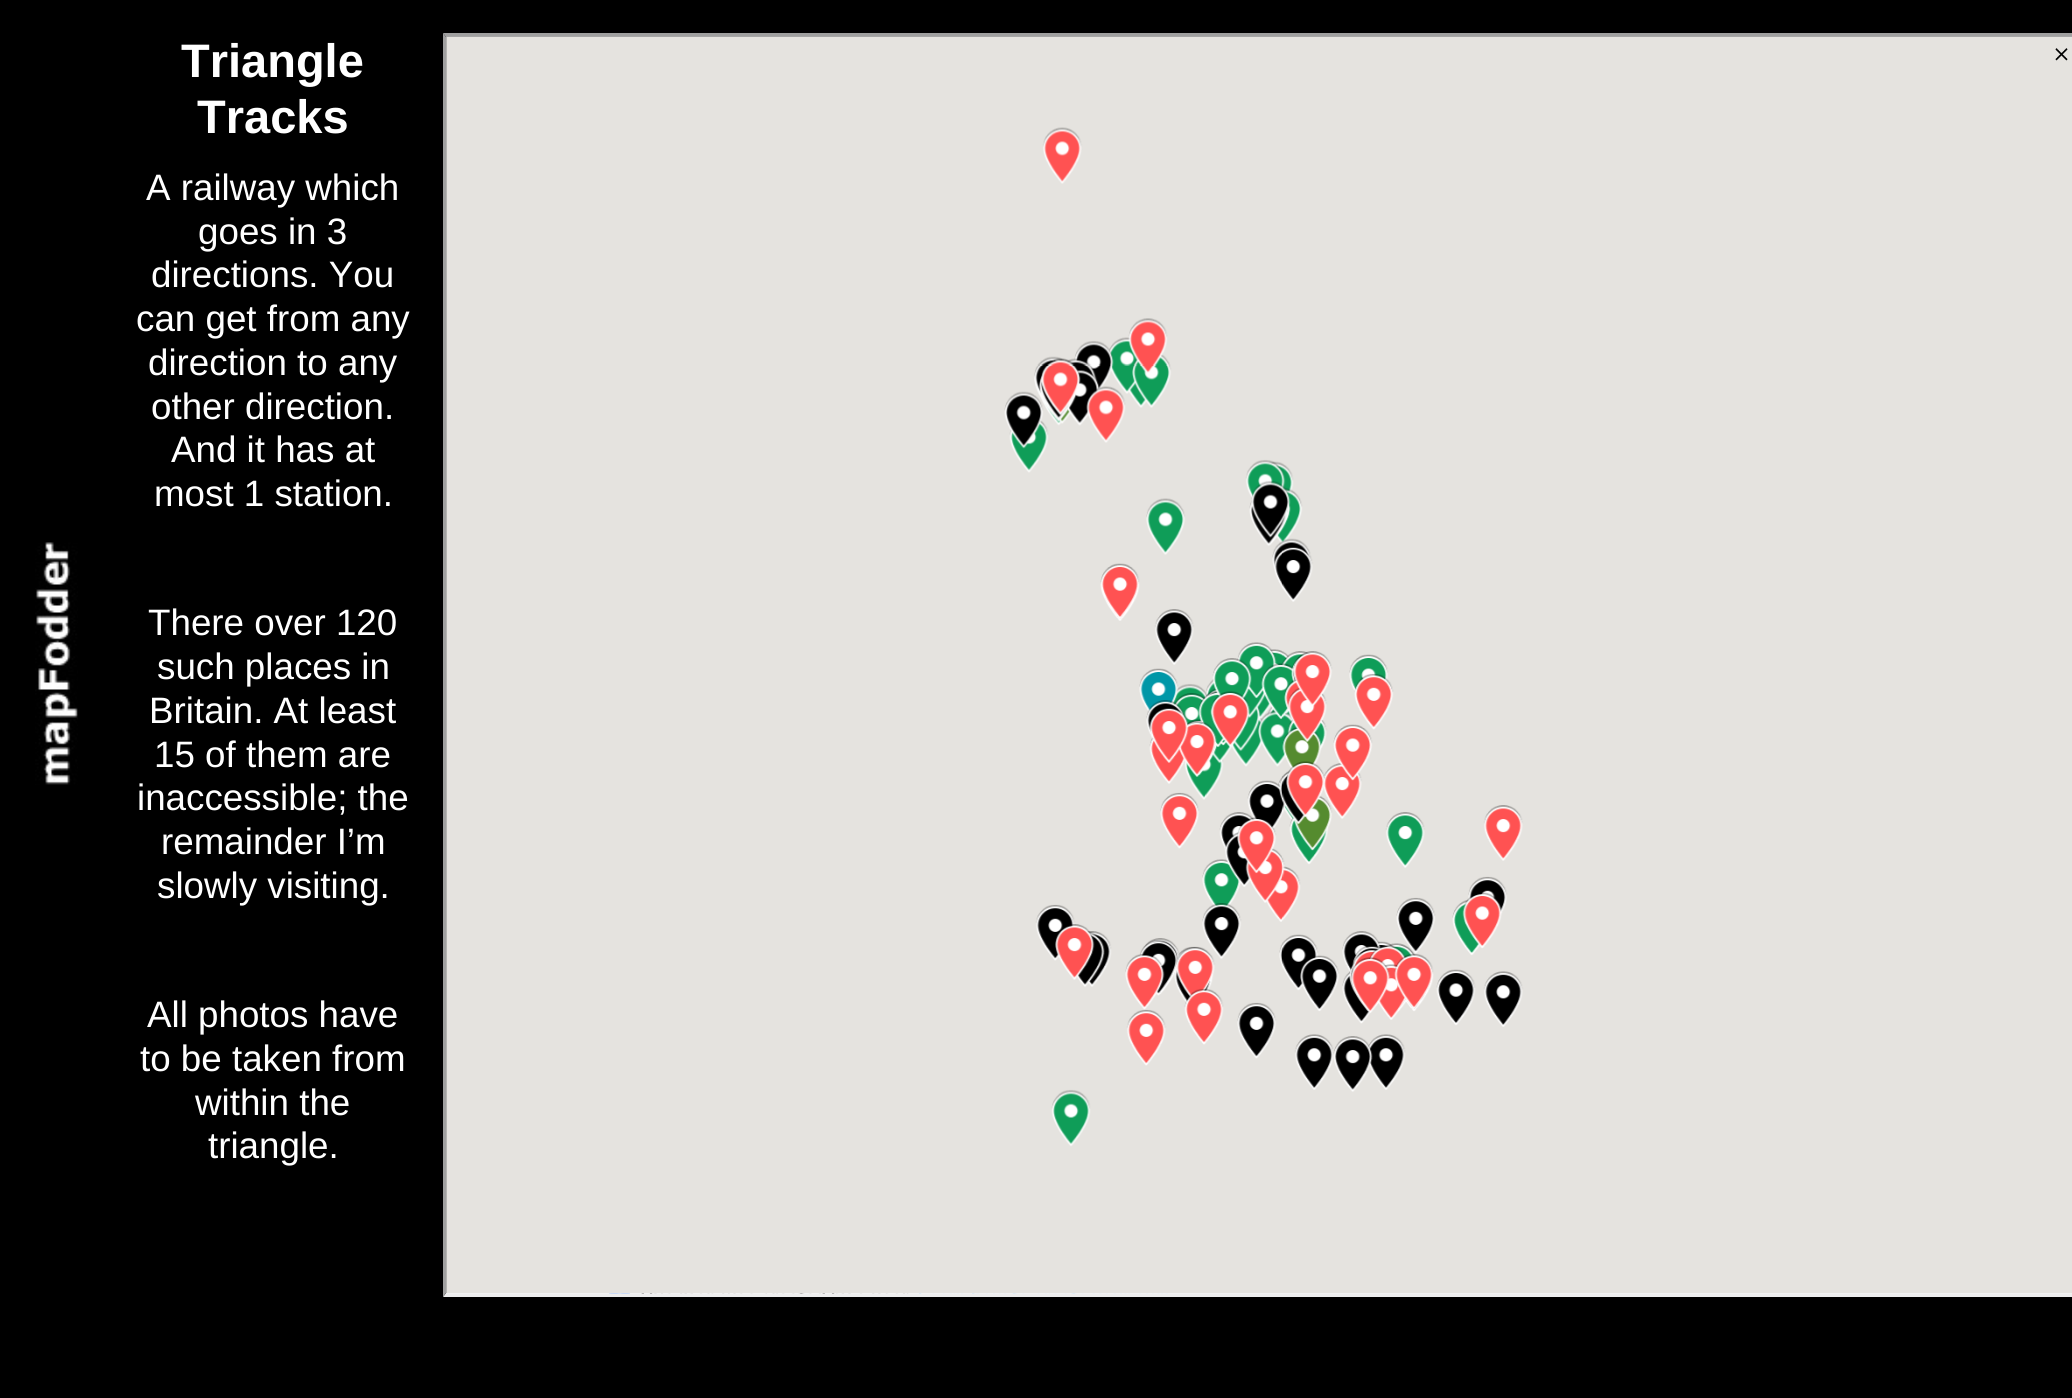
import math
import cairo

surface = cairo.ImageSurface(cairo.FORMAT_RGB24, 2072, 1398)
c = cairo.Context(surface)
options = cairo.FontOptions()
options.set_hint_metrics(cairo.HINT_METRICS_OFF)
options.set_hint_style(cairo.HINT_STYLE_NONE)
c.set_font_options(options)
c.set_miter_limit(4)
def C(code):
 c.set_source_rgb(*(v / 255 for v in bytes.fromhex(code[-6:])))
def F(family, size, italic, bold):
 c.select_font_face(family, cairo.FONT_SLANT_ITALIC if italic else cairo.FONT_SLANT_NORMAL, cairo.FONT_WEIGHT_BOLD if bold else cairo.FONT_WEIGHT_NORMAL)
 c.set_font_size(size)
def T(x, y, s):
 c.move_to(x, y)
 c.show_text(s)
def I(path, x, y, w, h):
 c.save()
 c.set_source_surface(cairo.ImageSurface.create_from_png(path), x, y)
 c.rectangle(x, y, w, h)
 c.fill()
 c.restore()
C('000000')
c.paint()
I('1.png',35,542,43,243)
F('Liberation Sans',47,0,1)
C('ffffff')
T(181,77,'Triangle')
T(197,133,'Tracks')
F('Liberation Sans',36.75,0,0)
T(146,200,'A railway which')
T(198,244,'goes in 3')
T(151,287,'directions. You')
T(136,331,'can get from any')
T(148,375,'direction to any')
T(151,419,'other direction.')
T(171,462,'And it has at')
T(154,506,'most 1 station.')
T(148,635,'There over 120')
T(157,679,'such places in')
T(149,723,'Britain. At least')
T(154,767,'15 of them are')
T(137,810,'inaccessible; the')
T(161,854,'remainder I’m')
T(157,898,'slowly visiting.')
T(147,1027,'All photos have')
T(140,1071,'to be taken from')
T(195,1115,'within the')
T(208,1158,'triangle.')
C('9f9f9f')
c.new_path()
c.move_to(443,33)
c.line_to(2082,33)
c.line_to(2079,37)
c.line_to(446,37)
c.close_path()
c.fill()
C('eeeeee')
c.new_path()
c.move_to(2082,1297)
c.line_to(443,1297)
c.line_to(446,1293)
c.line_to(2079,1293)
c.close_path()
c.fill()
C('9f9f9f')
c.new_path()
c.move_to(443,1297)
c.line_to(443,33)
c.line_to(446,37)
c.line_to(446,1293)
c.close_path()
c.fill()
I('2.png',446,36,1626,1258)
surface.write_to_png('o.png')
